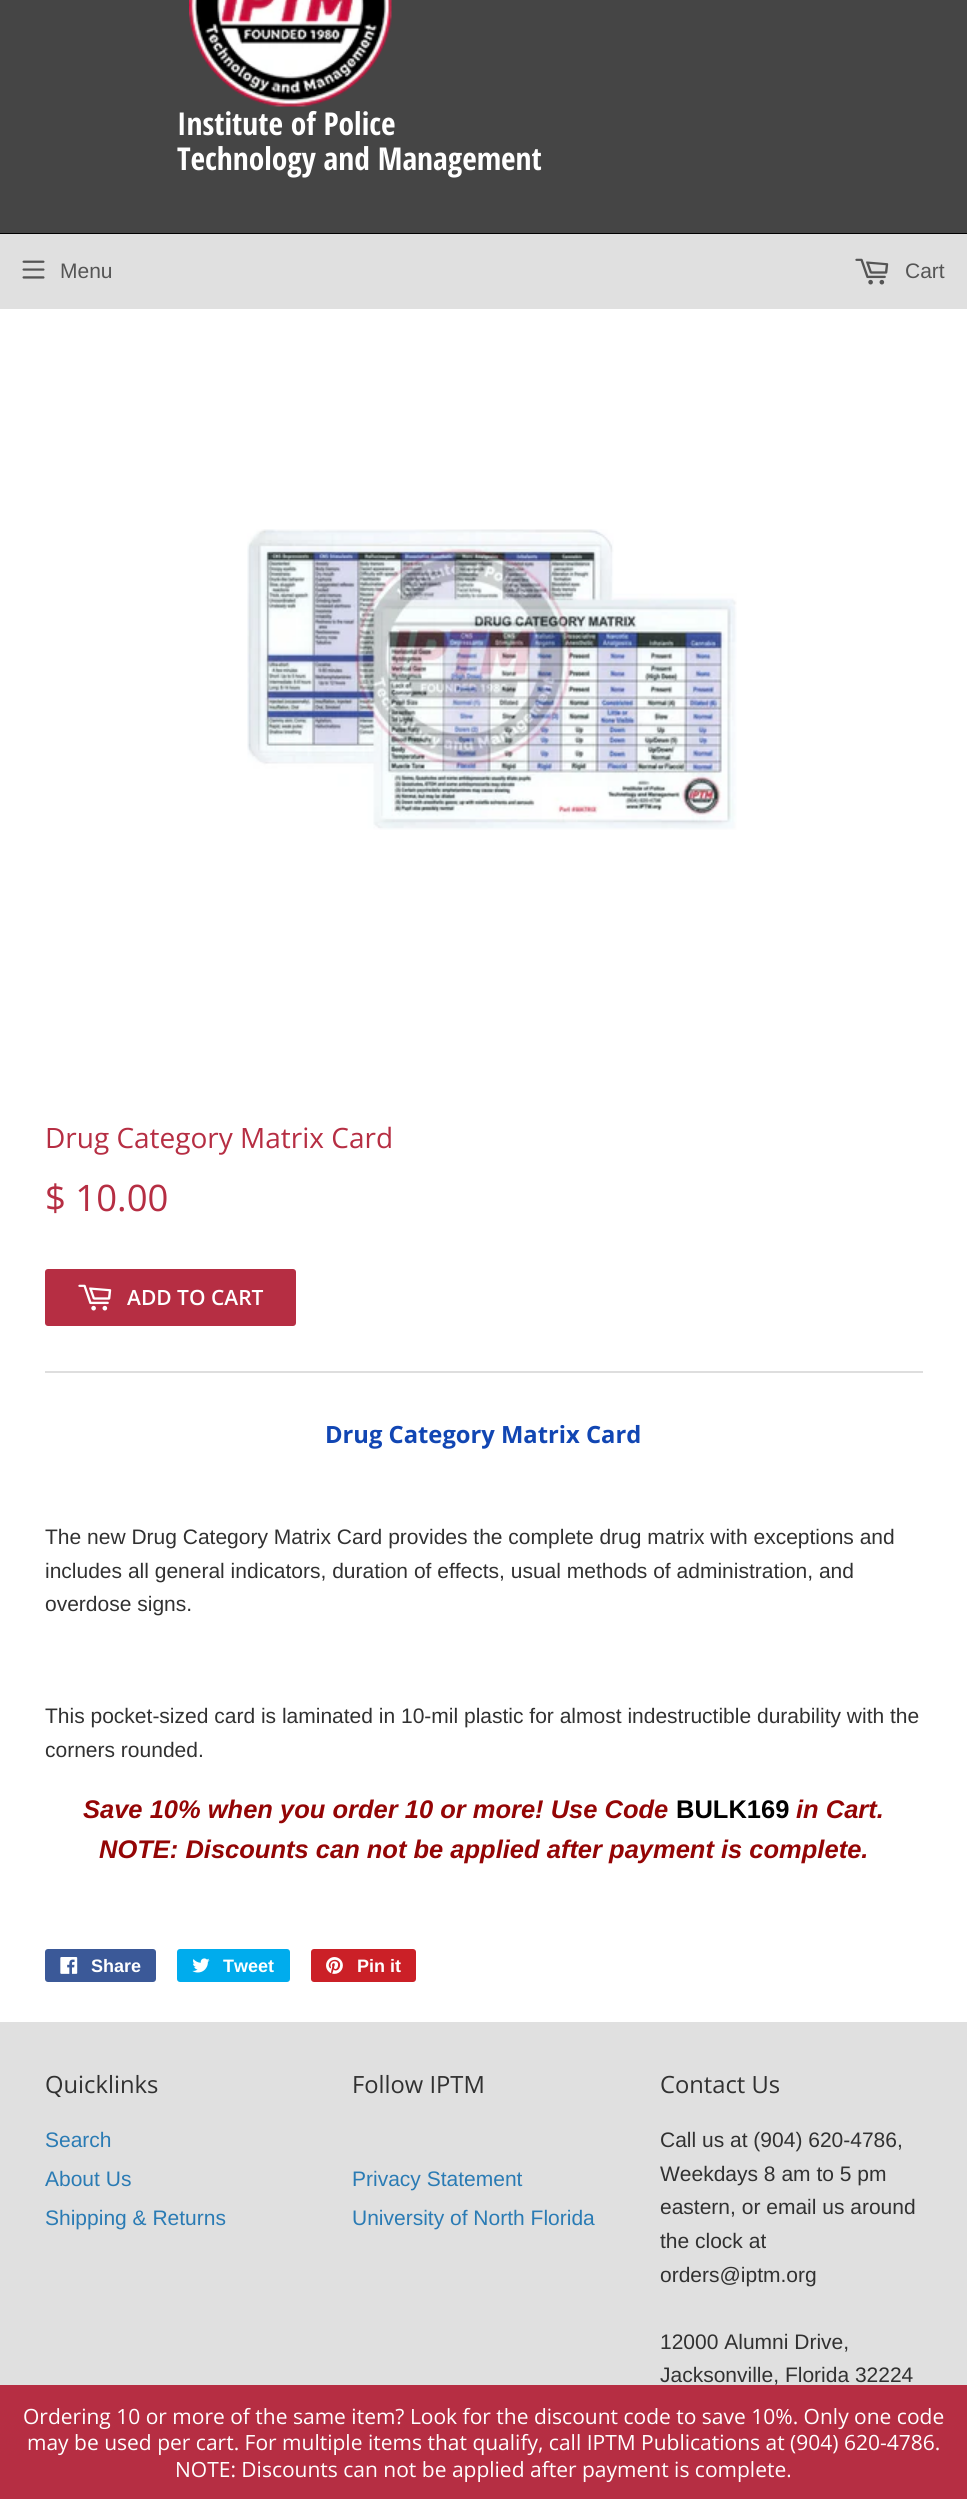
import math
import cairo

surface = cairo.ImageSurface(cairo.FORMAT_RGB24, 967, 2499)
c = cairo.Context(surface)
options = cairo.FontOptions()
options.set_hint_metrics(cairo.HINT_METRICS_OFF)
options.set_hint_style(cairo.HINT_STYLE_NONE)
c.set_font_options(options)
c.set_miter_limit(4)
def C(code):
 c.set_source_rgb(*(v / 255 for v in bytes.fromhex(code[-6:])))
def F(family, size, italic, bold):
 c.select_font_face(family, cairo.FONT_SLANT_ITALIC if italic else cairo.FONT_SLANT_NORMAL, cairo.FONT_WEIGHT_BOLD if bold else cairo.FONT_WEIGHT_NORMAL)
 c.set_font_size(size)
def T(x, y, s):
 c.move_to(x, y)
 c.show_text(s)
def R(x, y, w, h):
 c.rectangle(x, y, w, h)
 c.fill()
def Q(x, y, w, h, r):
 c.new_sub_path()
 for i, (u, v) in enumerate([(x + w - r, y + h - r), (x + r, y + h - r), (x + r, y + r), (x + w - r, y + r)]):
  c.arc(u, v, r, i * math.pi / 2, (i + 1) * math.pi / 2)
 c.close_path()
def I(path, x, y, w, h):
 c.save()
 c.set_source_surface(cairo.ImageSurface.create_from_png(path), x, y)
 c.rectangle(x, y, w, h)
 c.fill()
 c.restore()
C('ffffff')
c.paint()
C('454545')
R(0,0,967,233)
C('000000')
R(0,233,967,1)
I('1.png',189,0,203,107)
F('Open Sans Condensed',31.5,0,1)
C('ffffff')
T(177,135,'Institute of Police')
T(177,170,'Technology and Management')
C('e0e0e0')
R(0,234,967,75)
I('2.png',22,260,23,19)
F('Liberation Sans',21,0,0)
C('555555')
T(60,278,'Menu')
I('3.png',855,258,34,27)
T(905,278,'Cart')
I('4.png',247,529,490,301)
F('Open Sans',28,0,0)
C('b62e43')
T(45,1148,'Drug Category Matrix Card')
F('Open Sans',36.5,0,0)
T(45,1211,'$ 10.00')
Q(45,1269,251,57,3)
c.fill()
I('5.png',78,1284,34,27)
F('Open Sans SemiBold',21,0,0)
C('ffffff')
T(127,1305,'ADD TO CART')
C('dedede')
R(45,1371,878,2)
F('Open Sans',23.75,0,1)
C('1146b3')
T(325,1443,'Drug Category Matrix Card')
F('Liberation Sans',21,0,0)
C('313131')
T(45,1544,'The new Drug Category Matrix Card provides the complete drug matrix with exceptions and')
T(45,1578,'includes all general indicators, duration of effects, usual methods of administration, and')
T(45,1611,'overdose signs.')
T(45,1723,'This pocket-sized card is laminated in 10-mil plastic for almost indestructible durability with the')
T(45,1757,'corners rounded.')
F('Liberation Sans',25.5,1,1)
C('940505')
T(83,1818,'Save 10% when you order 10 or more! Use Code')
F('Liberation Sans',25.5,0,1)
C('000000')
T(676,1818,'BULK169')
F('Liberation Sans',25.5,1,1)
C('940505')
T(796,1818,'in Cart.')
T(99,1858,'NOTE: Discounts can not be applied after payment is complete.')
C('3b5998')
Q(45,1949,111,33,3)
c.fill()
I('6.png',60,1957,18,17)
F('Liberation Sans',18,0,1)
C('ffffff')
T(91,1972,'Share')
C('00aced')
Q(177,1949,113,33,3)
c.fill()
I('7.png',192,1958,18,15)
C('ffffff')
T(223,1972,'Tweet')
C('cb2027')
Q(311,1949,105,33,3)
c.fill()
I('8.png',326,1957,17,17)
C('ffffff')
T(357,1972,'Pin it')
C('e0e0e0')
R(0,2022,967,363)
F('Open Sans',23.75,0,0)
C('313131')
T(45,2093,'Quicklinks')
F('Liberation Sans',21,0,0)
C('2a7bb4')
T(45,2147,'Search')
T(45,2186,'About Us')
T(45,2225,'Shipping & Returns')
F('Open Sans',23.75,0,0)
C('313131')
T(352,2093,'Follow IPTM')
F('Liberation Sans',21,0,0)
C('2a7bb4')
T(352,2186,'Privacy Statement')
T(352,2225,'University of North Florida')
F('Open Sans',23.75,0,0)
C('313131')
T(660,2093,'Contact Us')
F('Liberation Sans',21,0,0)
T(660,2147,'Call us at (904) 620-4786,')
T(660,2181,'Weekdays 8 am to 5 pm')
T(660,2214,'eastern, or email us around')
T(660,2248,'the clock at')
T(660,2282,'orders@iptm.org')
T(660,2349,'12000 Alumni Drive,')
T(660,2382,'Jacksonville, Florida 32224')
C('b62e43')
R(0,2385,967,114)
F('Open Sans',21,0,0)
C('ffffff')
T(23,2424,'Ordering 10 or more of the same item? Look for the discount code to save 10%. Only one code')
T(27,2450,'may be used per cart. For multiple items that qualify, call IPTM Publications at (904) 620-4786.')
T(175,2477,'NOTE: Discounts can not be applied after payment is complete.')
surface.write_to_png('o.png')
